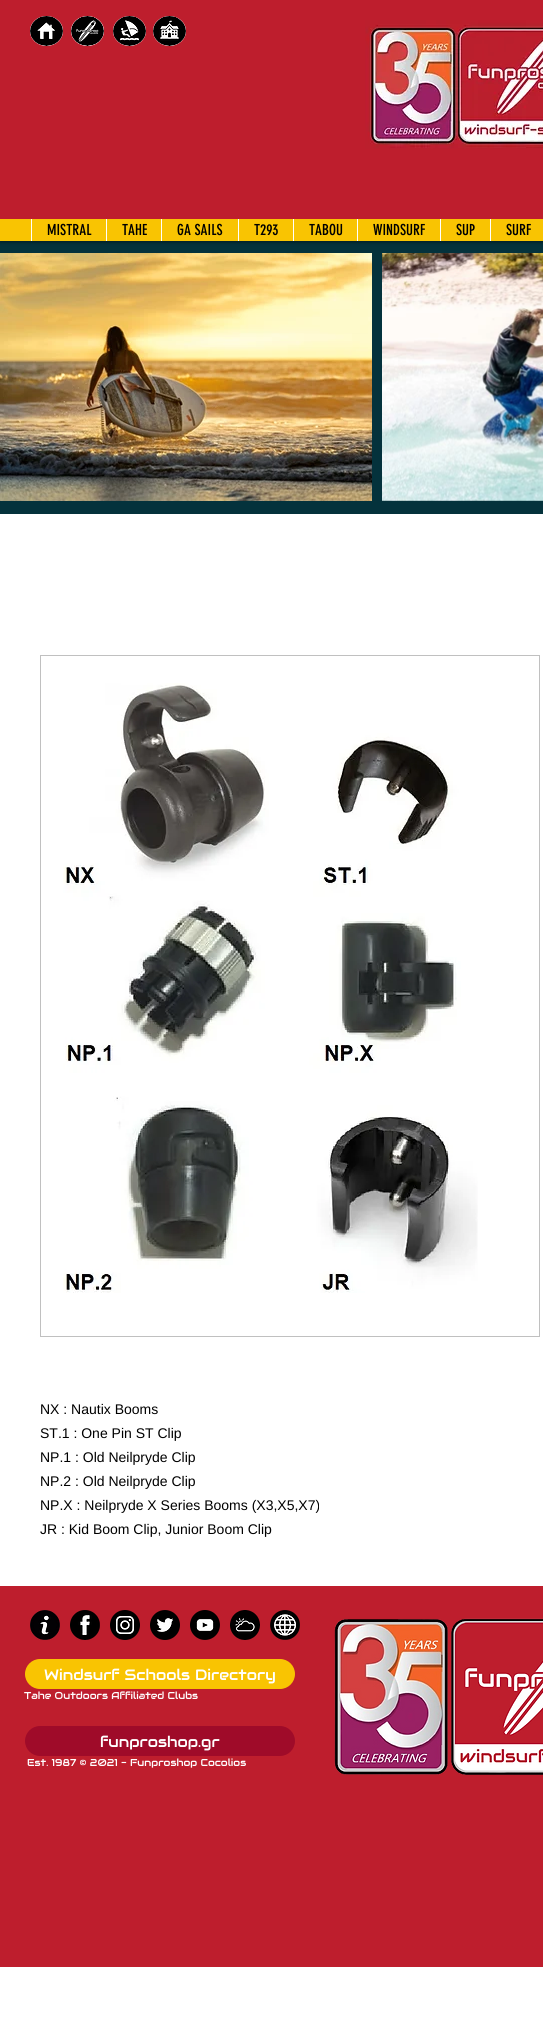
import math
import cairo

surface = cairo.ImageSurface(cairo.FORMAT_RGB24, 543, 2036)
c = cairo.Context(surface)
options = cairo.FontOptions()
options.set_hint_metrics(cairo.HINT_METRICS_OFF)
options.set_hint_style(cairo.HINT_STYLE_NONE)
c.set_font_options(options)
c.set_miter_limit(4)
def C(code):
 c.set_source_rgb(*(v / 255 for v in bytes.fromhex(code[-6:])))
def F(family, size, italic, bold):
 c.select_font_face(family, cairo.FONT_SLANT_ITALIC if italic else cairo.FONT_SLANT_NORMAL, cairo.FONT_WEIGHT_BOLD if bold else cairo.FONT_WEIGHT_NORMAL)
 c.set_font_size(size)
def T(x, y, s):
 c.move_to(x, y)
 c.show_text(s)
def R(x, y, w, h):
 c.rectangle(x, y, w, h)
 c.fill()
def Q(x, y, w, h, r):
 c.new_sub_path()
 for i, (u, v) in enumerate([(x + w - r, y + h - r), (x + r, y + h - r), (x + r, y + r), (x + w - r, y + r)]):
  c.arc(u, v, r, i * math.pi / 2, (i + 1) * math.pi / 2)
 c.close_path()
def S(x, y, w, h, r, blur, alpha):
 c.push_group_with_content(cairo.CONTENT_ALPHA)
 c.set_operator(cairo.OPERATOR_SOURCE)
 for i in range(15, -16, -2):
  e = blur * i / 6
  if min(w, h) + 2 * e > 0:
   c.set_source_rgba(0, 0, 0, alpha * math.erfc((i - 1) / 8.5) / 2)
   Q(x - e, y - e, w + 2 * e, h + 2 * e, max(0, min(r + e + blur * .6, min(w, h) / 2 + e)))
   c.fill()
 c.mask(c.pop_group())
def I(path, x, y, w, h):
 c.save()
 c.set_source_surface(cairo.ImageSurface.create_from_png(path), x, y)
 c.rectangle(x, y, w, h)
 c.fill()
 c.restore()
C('ffffff')
c.paint()
C('04323c')
R(0,241,543,273)
C('000000')
S(0,0,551,241,0,2.5,.7)
C('be1e2d')
R(0,0,543,219)
C('ffffff')
c.new_path()
c.move_to(46.5,16)
c.curve_to(55.5,16,63,22.5,63,31)
c.curve_to(63,39.5,55.5,46,46.5,46)
c.curve_to(37.5,46,30,39.5,30,31)
c.curve_to(30,22.5,37.5,16,46.5,16)
c.close_path()
c.fill()
I('1.png',30,16,33,30)
c.new_path()
c.move_to(87.5,16)
c.curve_to(96.5,16,104,22.5,104,31)
c.curve_to(104,39.5,96.5,46,87.5,46)
c.curve_to(78.5,46,71,39.5,71,31)
c.curve_to(71,22.5,78.5,16,87.5,16)
c.close_path()
c.fill()
I('2.png',71,16,33,30)
c.new_path()
c.move_to(129.5,16)
c.curve_to(138.5,16,146,22.5,146,31)
c.curve_to(146,39.5,138.5,46,129.5,46)
c.curve_to(120.5,46,113,39.5,113,31)
c.curve_to(113,22.5,120.5,16,129.5,16)
c.close_path()
c.fill()
I('3.png',113,16,33,30)
c.new_path()
c.move_to(169.5,16)
c.curve_to(178.5,16,186,22.5,186,31)
c.curve_to(186,39.5,178.5,46,169.5,46)
c.curve_to(160.5,46,153,39.5,153,31)
c.curve_to(153,22.5,160.5,16,169.5,16)
c.close_path()
c.fill()
I('4.png',153,16,33,30)
I('5.png',365,20,178,129)
C('f9c402')
R(0,219,543,22)
C('ffffff')
R(31,219,1,22)
F('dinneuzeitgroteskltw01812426',15,0,0)
C('000000')
T(47,235,'MISTRAL')
C('ffffff')
R(106,219,1,22)
C('000000')
T(122,235,'TAHE')
C('ffffff')
R(161,219,1,22)
C('000000')
T(177,235,'GA SAILS')
C('ffffff')
R(238,219,1,22)
C('000000')
T(254,235,'T293')
C('ffffff')
R(293,219,1,22)
C('000000')
T(309,235,'TABOU')
C('ffffff')
R(357,219,1,22)
C('000000')
T(373,235,'WINDSURF')
C('ffffff')
R(440,219,1,22)
C('000000')
T(456,235,'SUP')
C('ffffff')
R(490,219,1,22)
C('000000')
T(506,235,'SURF')
I('6.png',0,253,372,248)
I('7.png',382,253,161,248)
c.rectangle(40.5,655.5,499,681)
C('c0c0c0')
c.set_line_width(1)
c.stroke()
I('8.png',63,683,415,610)
F('Liberation Sans',14,0,0)
C('000000')
T(40,1414,'NX : Nautix Booms')
T(40,1438,'ST.1 : One Pin ST Clip')
T(40,1462,'NP.1 : Old Neilpryde Clip')
T(40,1486,'NP.2 : Old Neilpryde Clip')
T(40,1510,'NP.X : Neilpryde X Series Booms (X3,X5,X7)')
T(40,1534,'JR : Kid Boom Clip, Junior Boom Clip')
C('be1e2d')
R(0,1586,543,381)
I('9.png',30,1610,30,30)
I('10.png',70,1610,30,30)
I('11.png',110,1610,30,30)
I('12.png',150,1610,30,30)
I('13.png',190,1610,30,30)
I('14.png',230,1610,30,30)
I('15.png',270,1610,30,30)
C('f9c402')
Q(25,1659,270,30,15)
c.fill()
F('Audiowide',15,0,0)
C('ffffff')
T(44,1680,'Windsurf Schools Directory')
F('Audiowide',10,0,0)
T(24,1699,'Tahe Outdoors Affiliated Clubs')
C('9f0b29')
Q(25,1726,270,30,15)
c.fill()
F('Audiowide',15,0,0)
C('ffffff')
T(100,1747,'funproshop.gr')
F('Audiowide',10,0,0)
T(27,1766,'Est. 1987 © 2021 - Funproshop Cocolios')
I('16.png',334,1618,209,157)
surface.write_to_png('o.png')
